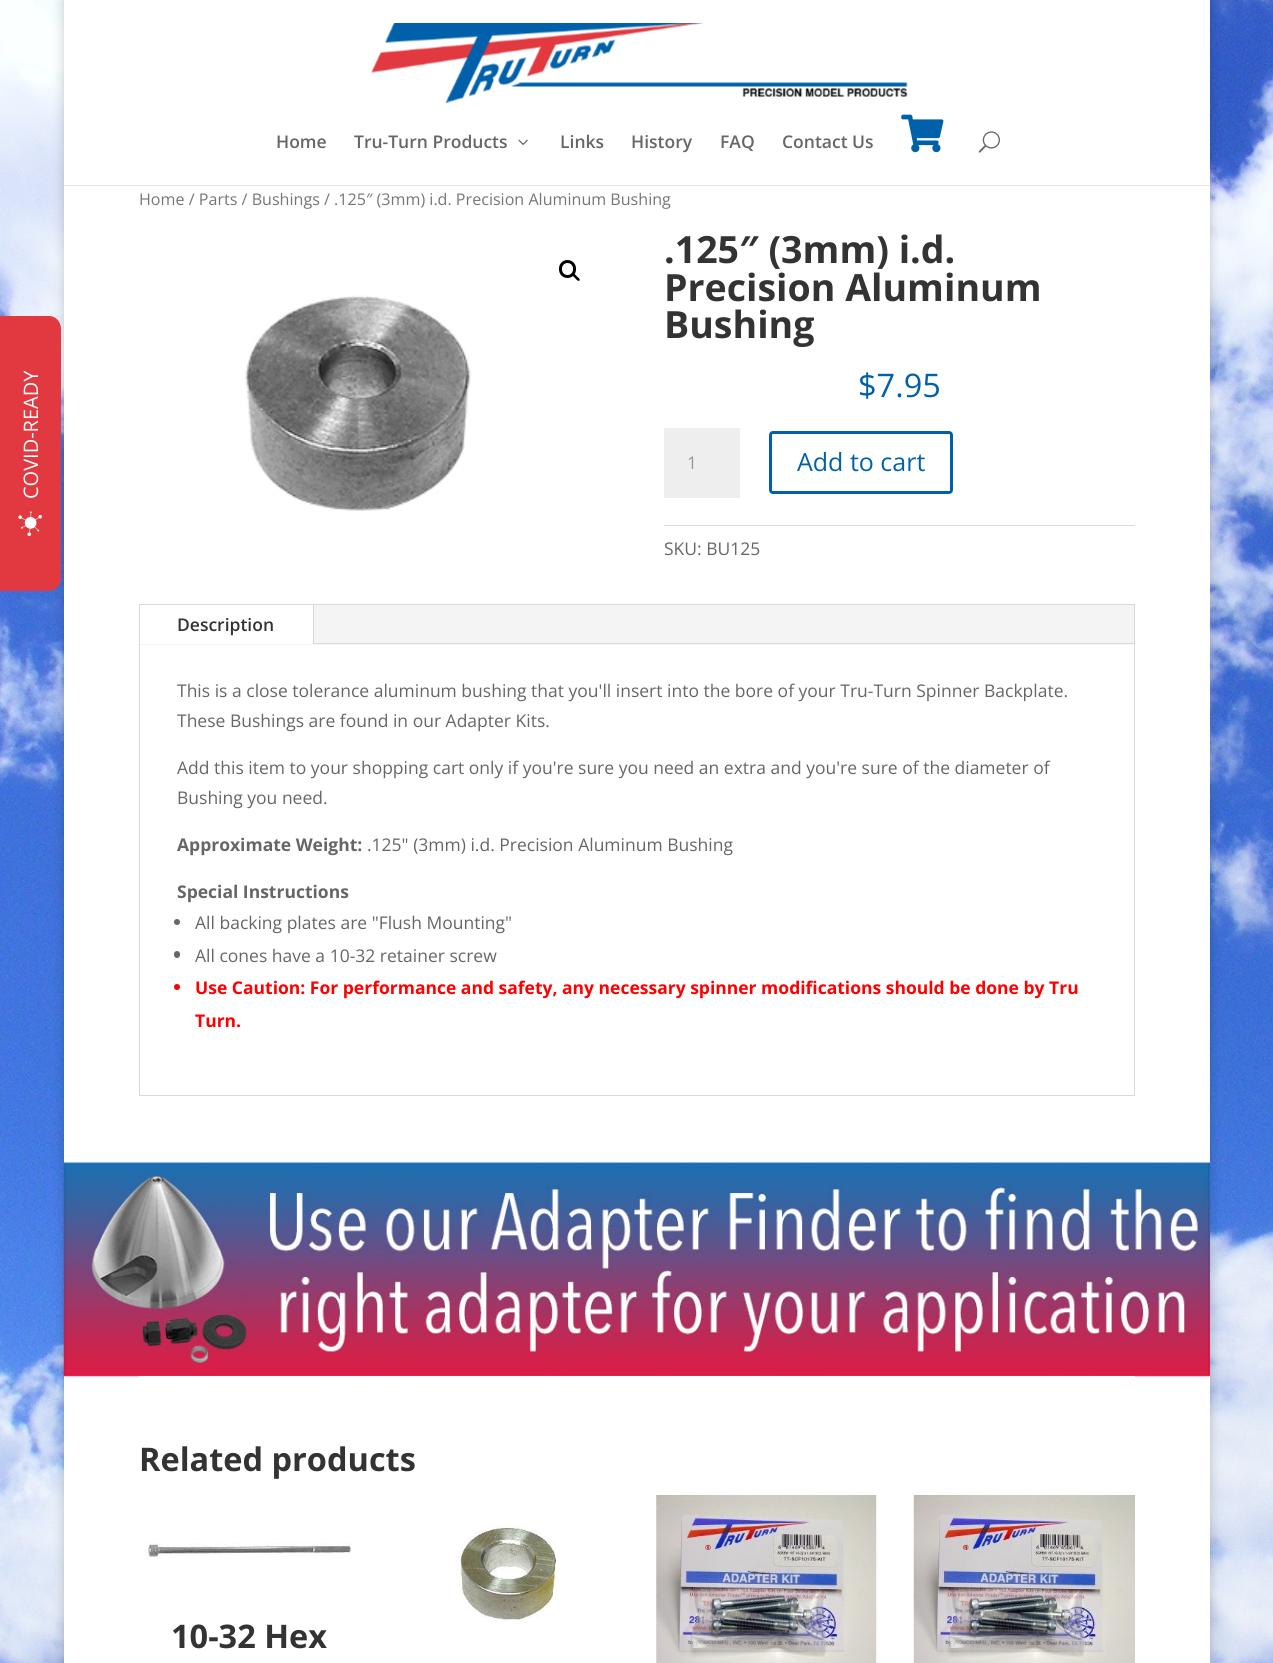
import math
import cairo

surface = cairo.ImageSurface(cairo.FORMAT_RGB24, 1273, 1663)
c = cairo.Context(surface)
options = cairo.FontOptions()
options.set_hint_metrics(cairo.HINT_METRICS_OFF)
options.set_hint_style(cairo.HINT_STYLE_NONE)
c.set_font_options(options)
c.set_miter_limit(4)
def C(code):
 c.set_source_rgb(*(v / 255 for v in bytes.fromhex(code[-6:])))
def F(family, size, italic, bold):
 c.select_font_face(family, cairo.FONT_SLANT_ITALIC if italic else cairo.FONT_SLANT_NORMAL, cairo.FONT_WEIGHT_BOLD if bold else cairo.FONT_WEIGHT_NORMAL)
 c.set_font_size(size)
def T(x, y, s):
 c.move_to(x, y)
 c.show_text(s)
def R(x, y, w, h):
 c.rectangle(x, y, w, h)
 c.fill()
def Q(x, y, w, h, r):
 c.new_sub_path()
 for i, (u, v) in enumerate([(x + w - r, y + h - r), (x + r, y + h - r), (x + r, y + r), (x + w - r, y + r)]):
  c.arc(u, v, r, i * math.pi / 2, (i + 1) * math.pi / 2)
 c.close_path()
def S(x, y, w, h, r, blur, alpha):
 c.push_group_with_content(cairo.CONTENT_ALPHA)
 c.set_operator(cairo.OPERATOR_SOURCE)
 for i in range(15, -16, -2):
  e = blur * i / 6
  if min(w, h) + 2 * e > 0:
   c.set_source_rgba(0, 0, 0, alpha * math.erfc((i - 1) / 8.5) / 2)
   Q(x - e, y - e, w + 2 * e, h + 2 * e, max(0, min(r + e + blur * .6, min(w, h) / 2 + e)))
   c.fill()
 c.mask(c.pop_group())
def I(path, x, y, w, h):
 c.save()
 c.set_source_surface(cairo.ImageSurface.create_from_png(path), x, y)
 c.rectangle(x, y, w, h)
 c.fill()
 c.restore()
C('ffffff')
c.paint()
I('1.png',0,0,1273,1663)
C('000000')
S(64,0,1146,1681,0,6,.2)
C('e2383f')
c.new_path()
c.move_to(-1,591)
c.line_to(-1,316)
c.line_to(49,316)
c.curve_to(56,316,61,322,61,329)
c.line_to(61,579)
c.curve_to(61,585,56,591,49,591)
c.close_path()
c.fill()
F('Open Sans',20,0,0)
C('ffffff')
c.save()
c.translate(38,499)
c.rotate(-90 * math.pi / 180)
T(0,0,'COVID-READY')
c.restore()
I('2.png',18,511,24,25)
C('e6e6e6')
R(64,185,1146,1)
C('ffffff')
R(64,0,1146,185)
I('3.png',371,23,537,80)
F('Open Sans SemiBold',17.5,0,0)
C('666666')
T(276,148,'Home')
T(354,148,'Tru-Turn Products')
I('4.png',518,139,10,6)
T(560,148,'Links')
T(631,148,'History')
T(720,148,'FAQ')
T(782,148,'Contact Us')
I('5.png',901,114,43,39)
I('6.png',978,131,22,22)
C('ffffff')
R(64,186,1146,1477)
F('Open Sans',16.1,0,0)
C('767676')
T(139,205,'Home / Parts / Bushings / .125″ (3mm) i.d. Precision Aluminum Bushing')
Q(560.5,261.5,14,15,7)
C('000000')
c.set_line_width(3)
c.stroke()
c.new_path()
c.move_to(572,273.5)
c.curve_to(573.5,272,576,275.5,576.5,276)
c.curve_to(577.5,277,580.5,279,579.5,280.5)
c.curve_to(578,282,575.5,278.5,575,278)
c.curve_to(574,277,571,275,572,273.5)
c.close_path()
c.fill()
I('7.png',245,295,226,216)
F('Open Sans',37.5,0,1)
C('333333')
T(664,263,'.125″ (3mm) i.d.')
T(664,301,'Precision Aluminum')
T(664,338,'Bushing')
F('Open Sans',32.5,0,0)
C('0061aa')
T(858,397,'$7.95')
C('eeeeee')
R(664,428,76,70)
F('Open Sans',17.5,0,0)
C('999999')
T(687,469,'1')
Q(770.5,432.5,181,60,2.5)
C('0061aa')
c.stroke()
F('Open Sans',25,0,0)
T(797,471,'Add to cart')
C('dadada')
R(664,525,471,1)
F('Open Sans',17.5,0,0)
C('666666')
T(664,555,'SKU: BU125')
c.rectangle(139.5,604.5,995,491)
C('d9d9d9')
c.set_line_width(1)
c.stroke()
C('f4f4f4')
R(140,605,994,40)
C('ffffff')
R(140,605,173,39)
C('d9d9d9')
R(313,605,1,39)
F('Open Sans SemiBold',17.5,0,0)
C('333333')
T(177,631,'Description')
C('d9d9d9')
R(314,643,820,1)
F('Open Sans',17.5,0,0)
C('666666')
T(177,697,'This is a close tolerance aluminum bushing that you\'ll insert into the bore of your Tru-Turn Spinner Backplate.')
T(177,727,'These Bushings are found in our Adapter Kits.')
T(177,774,'Add this item to your shopping cart only if you\'re sure you need an extra and you\'re sure of the diameter of')
T(177,804,'Bushing you need.')
F('Open Sans',17.5,0,1)
T(177,851,'Approximate Weight:')
F('Open Sans',17.5,0,0)
T(367,851,'.125" (3mm) i.d. Precision Aluminum Bushing')
F('Open Sans',17.5,0,1)
T(177,898,'Special Instructions')
c.new_path()
c.arc(177,922,3,0,2 * math.pi)
c.fill()
F('Open Sans',17.5,0,0)
T(195,929,'All backing plates are "Flush Mounting"')
Q(174,951,6,7,3)
c.fill()
T(195,962,'All cones have a 10-32 retainer screw')
C('ff0000')
c.new_path()
c.arc(177,987,3,0,2 * math.pi)
c.fill()
F('Open Sans',17.5,0,1)
T(195,994,'Use Caution: For performance and safety, any necessary spinner modifications should be done by Tru')
T(195,1027,'Turn.')
I('8.png',63,1162,1147,215)
C('ffffff')
R(139,1376,996,1)
F('Open Sans',32.5,0,1)
C('333333')
T(139,1471,'Related products')
I('9.png',456,1524,100,100)
I('10.png',656,1495,221,168)
I('11.png',913,1495,222,168)
I('12.png',145,1542,206,17)
T(171,1648,'10-32 Hex')
surface.write_to_png('o.png')
